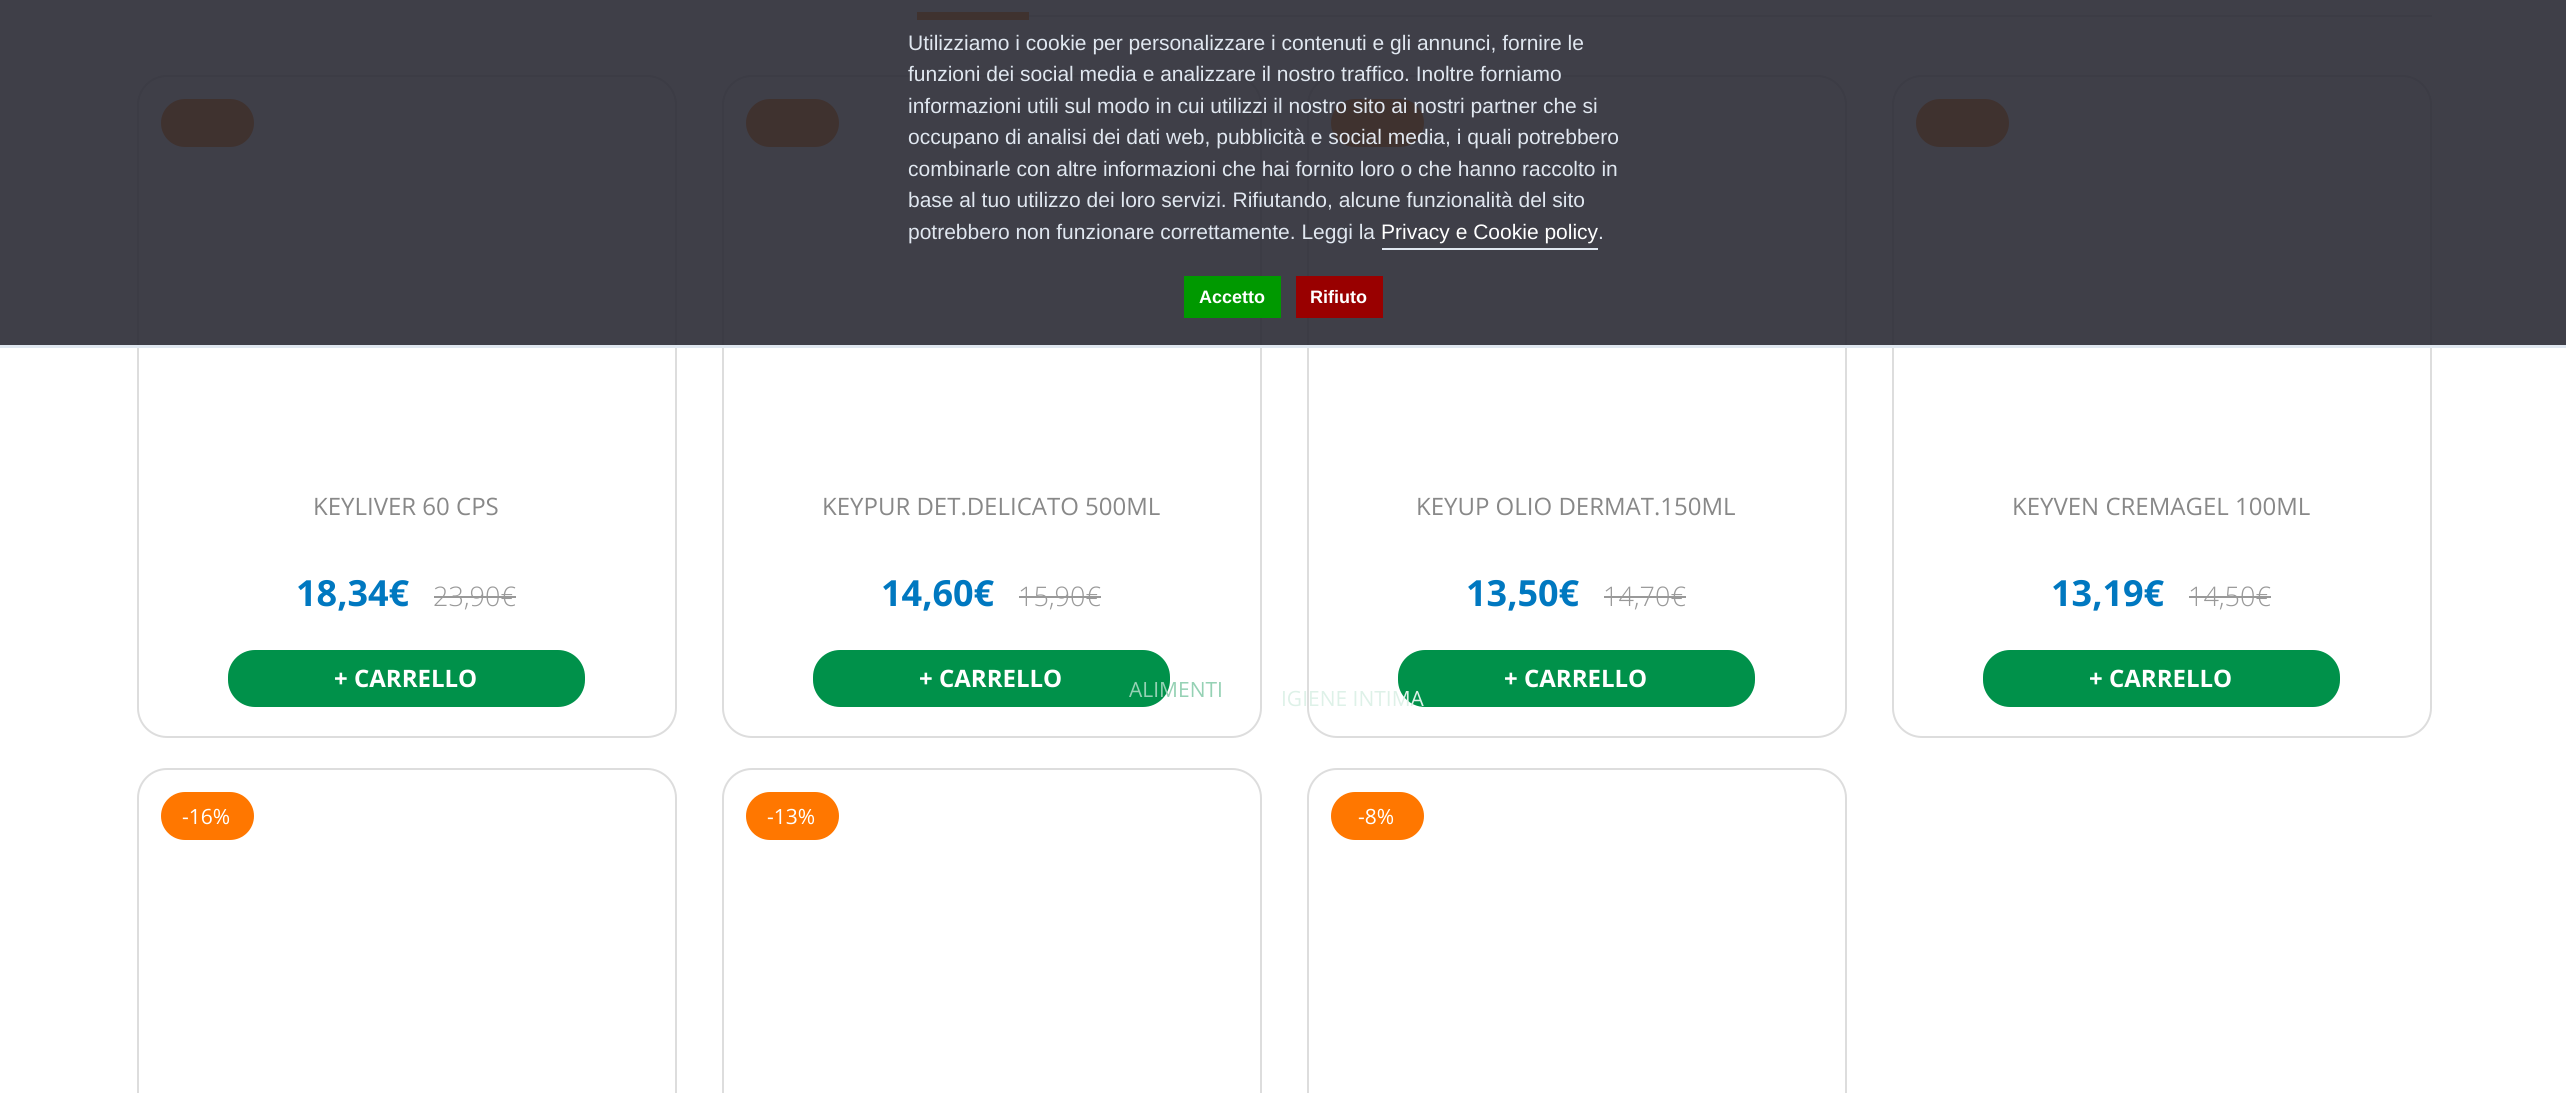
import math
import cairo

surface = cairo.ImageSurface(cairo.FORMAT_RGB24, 2566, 1093)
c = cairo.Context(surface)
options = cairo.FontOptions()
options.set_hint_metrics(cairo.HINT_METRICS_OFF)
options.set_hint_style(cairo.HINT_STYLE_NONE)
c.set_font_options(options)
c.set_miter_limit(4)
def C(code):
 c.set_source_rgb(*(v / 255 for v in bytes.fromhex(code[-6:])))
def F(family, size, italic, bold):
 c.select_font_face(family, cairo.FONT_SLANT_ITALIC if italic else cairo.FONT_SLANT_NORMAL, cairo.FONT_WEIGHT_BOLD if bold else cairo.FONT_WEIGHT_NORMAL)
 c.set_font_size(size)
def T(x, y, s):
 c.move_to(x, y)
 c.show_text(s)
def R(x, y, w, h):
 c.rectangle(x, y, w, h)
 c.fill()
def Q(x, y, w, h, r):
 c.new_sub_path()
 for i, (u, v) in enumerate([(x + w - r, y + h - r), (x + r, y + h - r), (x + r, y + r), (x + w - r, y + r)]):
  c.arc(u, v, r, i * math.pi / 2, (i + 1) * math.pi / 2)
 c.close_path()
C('ffffff')
c.paint()
C('ff7a05')
R(917,12,112,8)
C('dddddd')
R(1029,15,1403,2)
Q(138,76,538,661,29)
c.stroke()
C('ff7700')
Q(161,99,93,48,24)
c.fill()
Q(723,76,538,661,29)
C('dddddd')
c.stroke()
C('ff7700')
Q(746,99,93,48,24)
c.fill()
Q(1308,76,538,661,29)
C('dddddd')
c.stroke()
C('ff7700')
Q(1331,99,93,48,24)
c.fill()
Q(1893,76,538,661,29)
C('dddddd')
c.stroke()
C('ff7700')
Q(1916,99,93,48,24)
c.fill()
c.set_source_rgba(0.165,0.169,0.208,0.9)
R(0,0,2566,345)
C('e0e7f0')
R(0,345,2566,3)
F('Liberation Sans',21,0,0)
T(908,50,'Utilizziamo i cookie per personalizzare i contenuti e gli annunci, fornire le')
T(908,81,'funzioni dei social media e analizzare il nostro traffico. Inoltre forniamo')
T(908,113,'informazioni utili sul modo in cui utilizzi il nostro sito ai nostri partner che si')
T(908,144,'occupano di analisi dei dati web, pubblicità e social media, i quali potrebbero')
T(908,176,'combinarle con altre informazioni che hai fornito loro o che hanno raccolto in')
T(908,207,'base al tuo utilizzo dei loro servizi. Rifiutando, alcune funzionalità del sito')
T(908,239,'potrebbero non funzionare correttamente. Leggi la')
R(1382,248,216,2)
C('ffffff')
T(1381,239,'Privacy e Cookie policy')
C('e0e7f0')
T(1598,239,'.')
C('009900')
R(1184,276,97,42)
F('Liberation Sans',18,0,1)
C('ffffff')
T(1199,303,'Accetto')
C('990000')
R(1296,276,87,42)
C('ffffff')
T(1310,303,'Rifiuto')
F('Open Sans',24,0,0)
C('888888')
T(313,515,'KEYLIVER 60 CPS')
F('Open Sans',36,0,1)
C('0078c0')
T(296,606,'18,34€')
F('Open Sans Light',27,0,0)
C('999999')
T(433,606,'23,90€')
R(434,596,82,2)
C('00914a')
Q(228,650,357,57,27)
c.fill()
F('Open Sans',24,0,1)
C('ffffff')
T(334,687,'+ CARRELLO')
F('Open Sans',24,0,0)
C('888888')
T(822,515,'KEYPUR DET.DELICATO 500ML')
F('Open Sans',36,0,1)
C('0078c0')
T(881,606,'14,60€')
F('Open Sans Light',27,0,0)
C('999999')
T(1018,606,'15,90€')
R(1019,596,82,2)
C('00914a')
Q(813,650,357,57,27)
c.fill()
F('Open Sans',24,0,1)
C('ffffff')
T(919,687,'+ CARRELLO')
F('Open Sans',24,0,0)
C('888888')
T(1416,515,'KEYUP OLIO DERMAT.150ML')
F('Open Sans',36,0,1)
C('0078c0')
T(1466,606,'13,50€')
F('Open Sans Light',27,0,0)
C('999999')
T(1603,606,'14,70€')
R(1604,596,82,2)
C('00914a')
Q(1398,650,357,57,27)
c.fill()
F('Open Sans',24,0,1)
C('ffffff')
T(1504,687,'+ CARRELLO')
F('Open Sans',24,0,0)
C('888888')
T(2012,515,'KEYVEN CREMAGEL 100ML')
F('Open Sans',36,0,1)
C('0078c0')
T(2051,606,'13,19€')
F('Open Sans Light',27,0,0)
C('999999')
T(2188,606,'14,50€')
R(2189,596,82,2)
C('00914a')
Q(1983,650,357,57,27)
c.fill()
F('Open Sans',24,0,1)
C('ffffff')
T(2089,687,'+ CARRELLO')
Q(138,769,538,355,29)
C('dddddd')
c.stroke()
C('ff7700')
Q(161,792,93,48,24)
c.fill()
F('Open Sans',21,0,0)
C('ffffff')
T(182,824,'-16%')
Q(723,769,538,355,29)
C('dddddd')
c.stroke()
C('ff7700')
Q(746,792,93,48,24)
c.fill()
C('ffffff')
T(767,824,'-13%')
Q(1308,769,538,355,29)
C('dddddd')
c.stroke()
C('ff7700')
Q(1331,792,93,48,24)
c.fill()
C('ffffff')
T(1358,824,'-8%')
C('95d1b4')
T(1129,697,'ALIMENTI')
C('def1e8')
T(1281,706,'IGIENE INTIMA')
surface.write_to_png('o.png')
